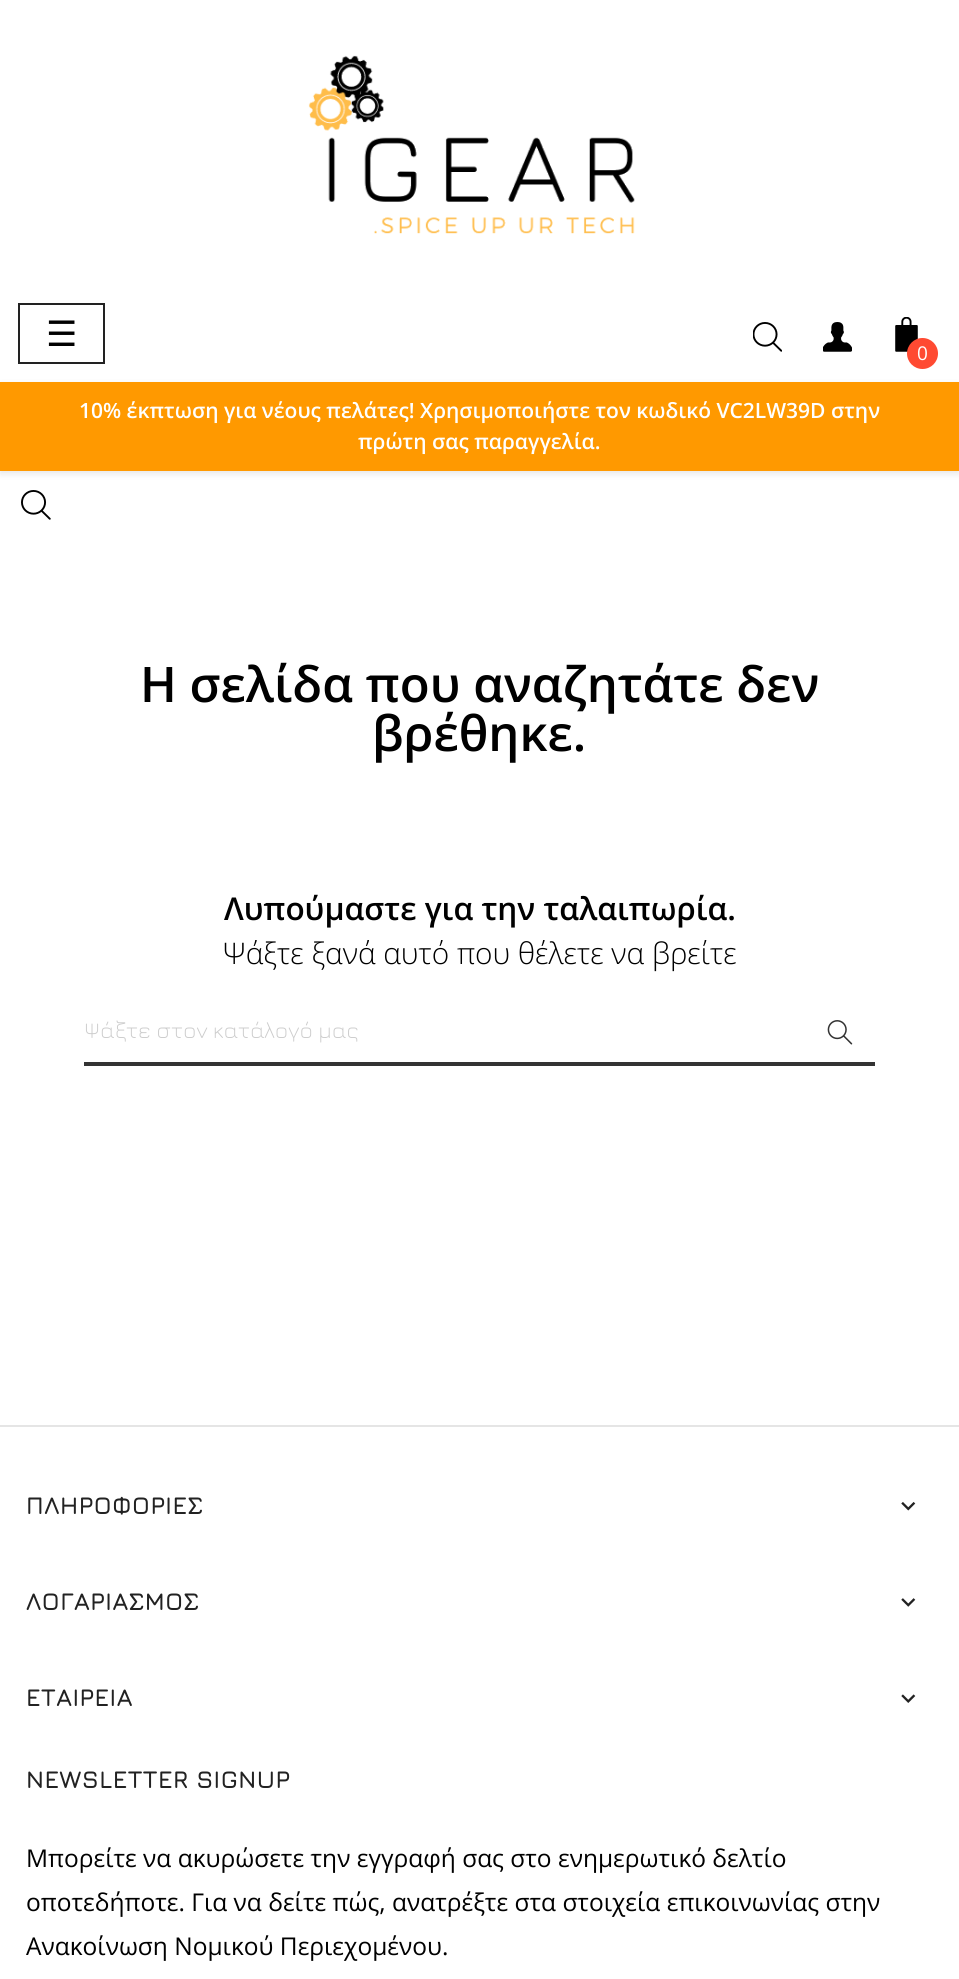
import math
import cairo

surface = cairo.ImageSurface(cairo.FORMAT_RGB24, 959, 1979)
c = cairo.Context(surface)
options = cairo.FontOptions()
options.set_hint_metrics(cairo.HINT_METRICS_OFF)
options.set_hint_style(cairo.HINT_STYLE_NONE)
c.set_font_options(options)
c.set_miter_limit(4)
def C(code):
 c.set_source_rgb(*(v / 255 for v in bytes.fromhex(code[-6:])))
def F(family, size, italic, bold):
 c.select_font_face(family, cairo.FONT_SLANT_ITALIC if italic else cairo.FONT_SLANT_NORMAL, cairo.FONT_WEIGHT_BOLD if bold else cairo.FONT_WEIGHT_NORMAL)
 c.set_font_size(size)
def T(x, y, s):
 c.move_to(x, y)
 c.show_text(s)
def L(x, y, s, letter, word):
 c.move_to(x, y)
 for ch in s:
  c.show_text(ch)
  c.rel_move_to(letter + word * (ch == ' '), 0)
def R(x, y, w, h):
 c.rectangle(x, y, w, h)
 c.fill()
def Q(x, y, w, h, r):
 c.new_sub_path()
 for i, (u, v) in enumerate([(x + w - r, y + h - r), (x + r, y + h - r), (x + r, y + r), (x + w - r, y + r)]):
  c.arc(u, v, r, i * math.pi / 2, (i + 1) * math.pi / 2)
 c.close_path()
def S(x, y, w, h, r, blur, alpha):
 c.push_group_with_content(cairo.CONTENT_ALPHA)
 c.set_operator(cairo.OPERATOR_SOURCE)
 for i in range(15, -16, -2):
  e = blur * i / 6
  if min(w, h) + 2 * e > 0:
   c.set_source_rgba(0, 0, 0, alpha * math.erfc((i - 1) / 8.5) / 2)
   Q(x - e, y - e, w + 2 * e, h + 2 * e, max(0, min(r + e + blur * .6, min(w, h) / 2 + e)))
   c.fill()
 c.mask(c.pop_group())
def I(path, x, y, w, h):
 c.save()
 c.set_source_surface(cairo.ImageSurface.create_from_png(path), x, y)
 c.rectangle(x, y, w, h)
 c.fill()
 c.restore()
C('ffffff')
c.paint()
I('1.png',308,55,327,179)
c.rectangle(19,304,85,59)
C('222222')
c.stroke()
F('DejaVu Sans',35,0,0)
C('000000')
T(46,346,'☰')
I('2.png',753,322,29,30)
I('3.png',823,322,29,30)
I('4.png',895,317,23,35)
C('ff4a32')
c.arc(922.5,353.5,15.5,0,2 * math.pi)
c.fill()
F('Open Sans',19,0,0)
C('ffffff')
T(917,360,'0')
C('000000')
S(0,385,959,89,0,3.5,.1)
C('ff9900')
R(0,382,959,89)
F('Open Sans SemiBold',21,0,0)
C('ffffff')
T(79,418,'10% έκπτωση για νέους πελάτες! Χρησιμοποιήστε τον κωδικό VC2LW39D στην')
T(358,449,'πρώτη σας παραγγελία.')
I('5.png',21,490,30,30)
F('Open Sans SemiBold',49,0,0)
C('000000')
T(140,702,'Η σελίδα που αναζητάτε δεν')
T(372,751,'βρέθηκε.')
F('Open Sans SemiBold',31.5,0,0)
T(224,920,'Λυπούμαστε για την ταλαιπωρία.')
F('Open Sans Light',29.75,0,0)
T(223,964,'Ψάξτε ξανά αυτό που θέλετε να βρείτε')
C('333333')
R(84,1062,791,4)
F('Jura Light',22.75,0,0)
C('cccccc')
T(84,1038,'Ψάξτε στον κατάλογό μας')
I('6.png',827,1020,26,25)
C('e5e5e5')
R(0,1425,959,2)
F('Jura',24.5,0,1)
C('222222')
L(26,1514,'ΠΛΗΡΟΦΟΡΙΕΣ',1.25,0)
I('7.png',901,1502,15,9)
L(26,1610,'ΛΟΓΑΡΙΑΣΜΟΣ',1.25,0)
I('8.png',901,1598,15,9)
L(26,1706,'ΕΤΑΙΡΕΙΑ',1.25,0)
I('9.png',901,1694,15,9)
L(26,1788,'NEWSLETTER SIGNUP',1.25,0)
F('Open Sans',24.5,0,0)
C('000000')
T(26,1867,'Μπορείτε να ακυρώσετε την εγγραφή σας στο ενημερωτικό δελτίο')
T(26,1911,'οποτεδήποτε. Για να δείτε πώς, ανατρέξτε στα στοιχεία επικοινωνίας στην')
T(26,1955,'Ανακοίνωση Νομικού Περιεχομένου.')
surface.write_to_png('o.png')
